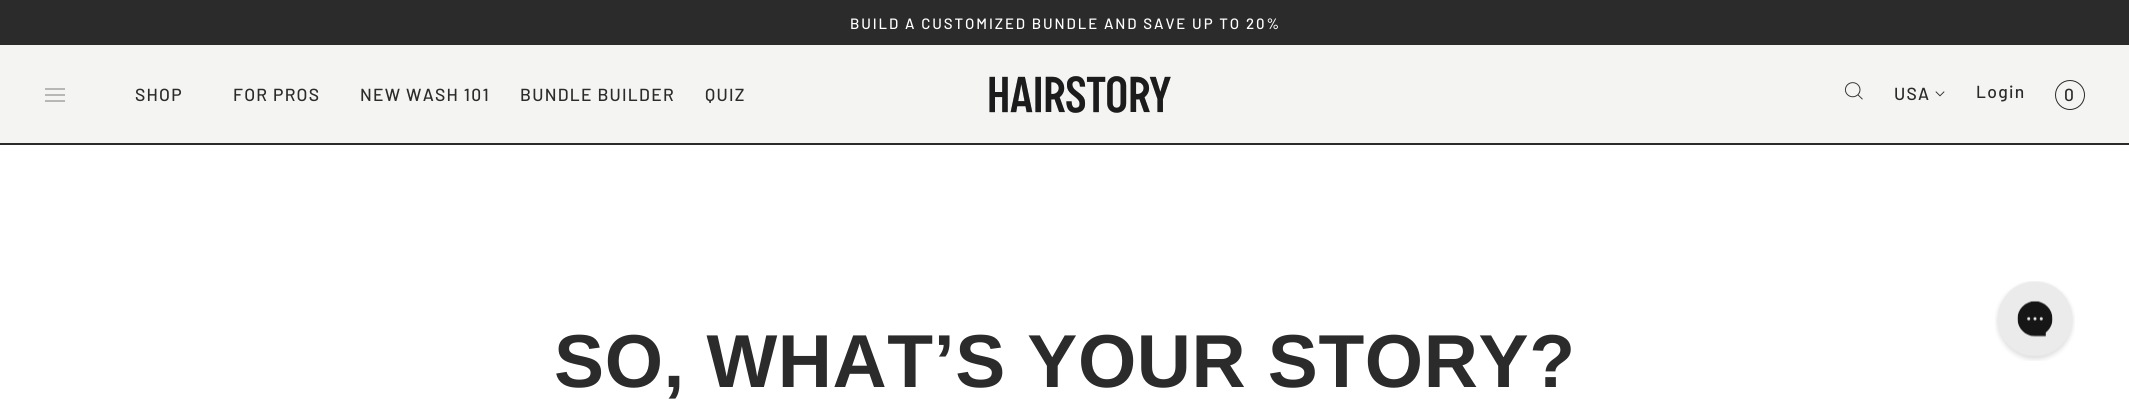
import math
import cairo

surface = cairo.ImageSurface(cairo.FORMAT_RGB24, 2129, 410)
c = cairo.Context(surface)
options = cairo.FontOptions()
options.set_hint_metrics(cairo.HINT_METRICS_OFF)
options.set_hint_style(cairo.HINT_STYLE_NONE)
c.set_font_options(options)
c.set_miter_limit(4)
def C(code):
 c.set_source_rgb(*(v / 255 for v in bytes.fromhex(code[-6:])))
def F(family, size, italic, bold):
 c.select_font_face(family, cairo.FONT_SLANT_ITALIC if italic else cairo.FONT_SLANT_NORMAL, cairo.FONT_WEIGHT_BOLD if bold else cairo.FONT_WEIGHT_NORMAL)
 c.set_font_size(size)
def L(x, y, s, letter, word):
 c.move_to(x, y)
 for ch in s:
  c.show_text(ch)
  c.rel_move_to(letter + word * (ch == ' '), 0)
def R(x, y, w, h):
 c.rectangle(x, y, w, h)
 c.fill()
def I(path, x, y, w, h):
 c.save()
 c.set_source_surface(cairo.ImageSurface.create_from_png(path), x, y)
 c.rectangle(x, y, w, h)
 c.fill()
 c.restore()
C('ffffff')
c.paint()
C('2b2b2b')
R(0,0,2129,45)
F('Barlow Medium',15,0,0)
C('ffffff')
L(850,29,'BUILD A CUSTOMIZED BUNDLE AND SAVE UP TO 20%',1.9,0)
C('2b2b2b')
R(0,143,2129,2)
C('f4f4f2')
R(0,45,2129,98)
c.new_path()
c.move_to(45,89)
c.line_to(65,89)
c.move_to(45,95)
c.line_to(65,95)
c.move_to(45,101)
c.line_to(65,101)
C('2b2b2b')
c.set_line_width(.6)
c.stroke()
F('Barlow Medium',17.5,0,0)
L(135,101,'SHOP',1.25,0)
L(233,101,'FOR PROS',1.25,0)
L(360,101,'NEW WASH 101',1.25,0)
L(520,101,'BUNDLE BUILDER',1.25,0)
L(705,101,'QUIZ',1.25,0)
I('1.png',989,76,182,37)
I('2.png',1844,82,19,18)
L(1894,100,'USA',1.25,0)
I('3.png',1935,91,10,6)
L(1976,98,'Login',1.25,0)
c.new_path()
c.arc(2070,95,14.5,0,2 * math.pi)
c.set_line_width(1)
c.stroke()
L(2064,101,'0',1.25,0)
F('Liberation Sans',75,0,1)
L(554,387,'SO, WHAT’S YOUR STORY?',.6,0)
I('4.png',1995,281,80,80)
surface.write_to_png('o.png')
